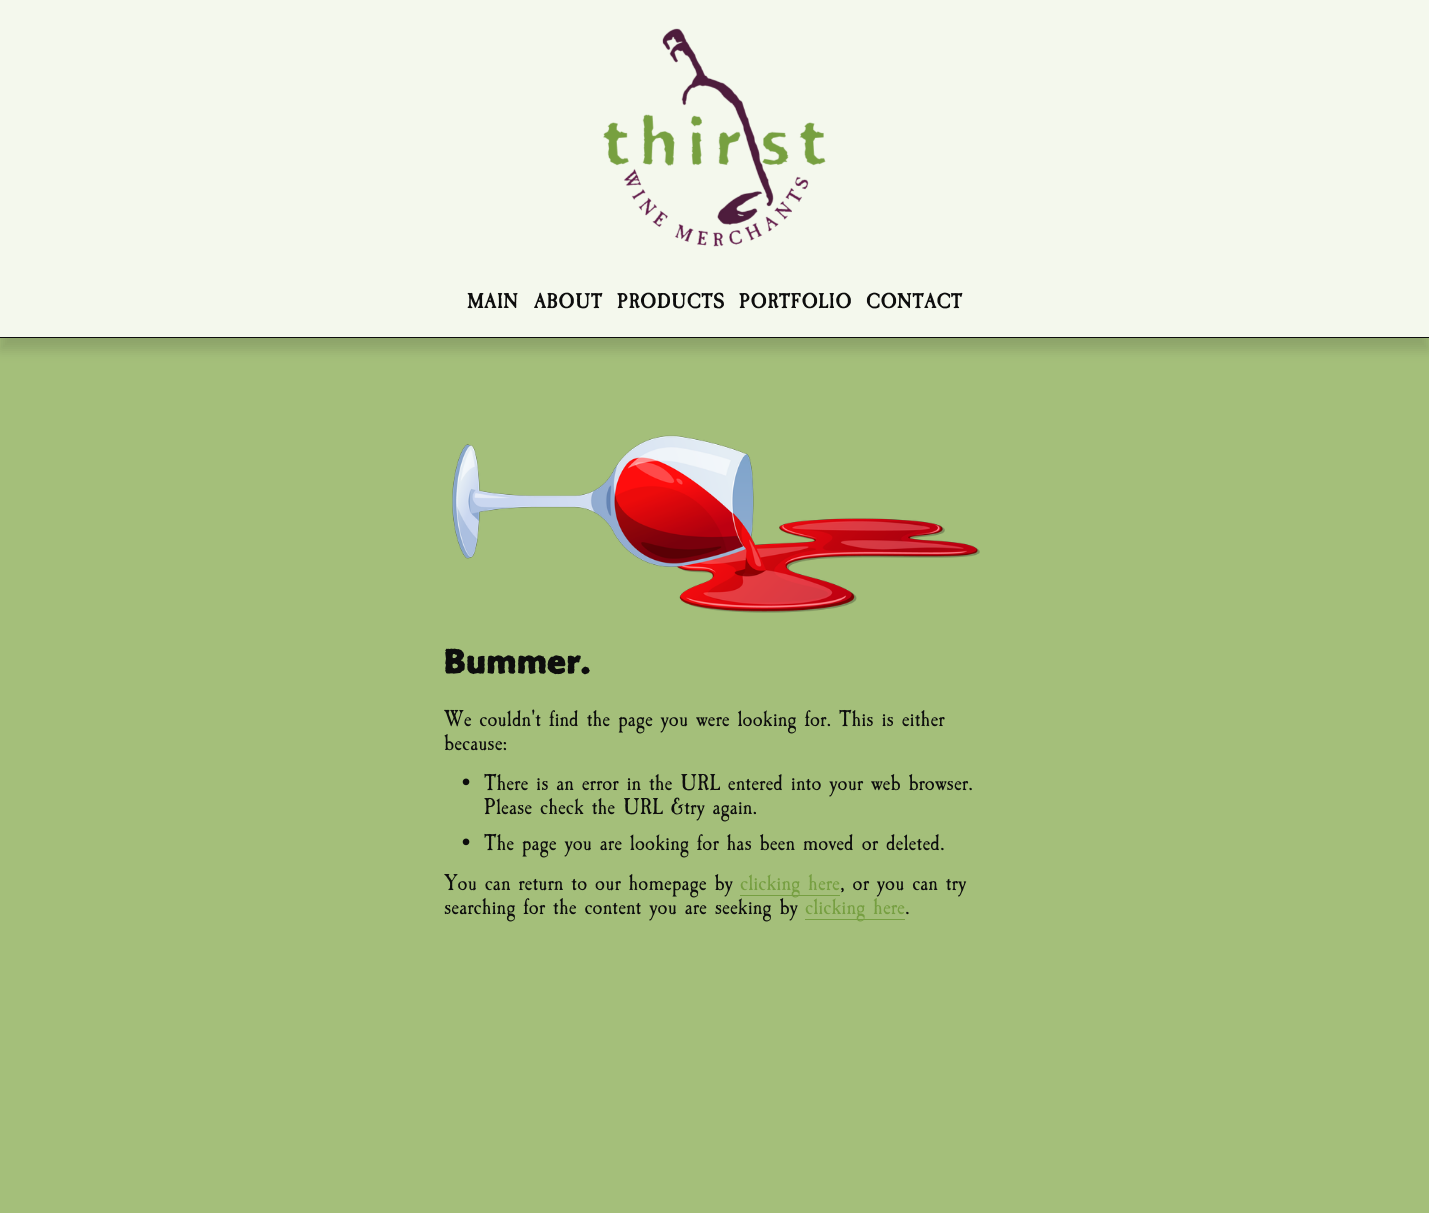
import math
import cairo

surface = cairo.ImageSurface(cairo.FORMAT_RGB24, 1429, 1213)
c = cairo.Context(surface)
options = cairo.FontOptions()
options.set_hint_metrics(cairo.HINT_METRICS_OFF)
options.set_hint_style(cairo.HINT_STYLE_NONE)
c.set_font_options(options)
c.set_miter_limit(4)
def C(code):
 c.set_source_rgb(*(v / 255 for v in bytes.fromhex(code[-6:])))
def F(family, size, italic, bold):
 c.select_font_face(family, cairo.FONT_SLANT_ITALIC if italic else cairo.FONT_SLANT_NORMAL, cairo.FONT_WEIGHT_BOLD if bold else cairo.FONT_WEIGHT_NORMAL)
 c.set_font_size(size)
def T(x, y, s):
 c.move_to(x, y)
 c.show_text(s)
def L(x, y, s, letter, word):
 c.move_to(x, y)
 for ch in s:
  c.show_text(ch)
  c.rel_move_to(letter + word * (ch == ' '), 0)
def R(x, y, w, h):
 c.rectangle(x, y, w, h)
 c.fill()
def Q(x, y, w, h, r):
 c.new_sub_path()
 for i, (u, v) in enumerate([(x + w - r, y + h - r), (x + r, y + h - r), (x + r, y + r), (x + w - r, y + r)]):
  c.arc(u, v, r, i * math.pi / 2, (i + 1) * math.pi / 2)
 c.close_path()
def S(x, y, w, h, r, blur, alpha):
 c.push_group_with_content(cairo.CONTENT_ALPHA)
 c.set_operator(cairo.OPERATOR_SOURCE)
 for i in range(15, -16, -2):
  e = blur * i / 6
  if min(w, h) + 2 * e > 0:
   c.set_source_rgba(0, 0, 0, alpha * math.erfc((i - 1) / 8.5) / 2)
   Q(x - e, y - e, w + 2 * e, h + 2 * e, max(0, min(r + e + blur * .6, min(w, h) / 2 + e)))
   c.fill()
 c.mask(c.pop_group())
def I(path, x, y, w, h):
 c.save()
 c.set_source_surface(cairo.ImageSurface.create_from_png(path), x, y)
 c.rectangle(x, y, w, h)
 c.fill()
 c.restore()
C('a4bf7a')
c.paint()
C('8da46a')
S(0,12,1429,338,0,6,1)
C('f4f8ed')
R(0,0,1429,337)
I('1.png',603,28,223,219)
F('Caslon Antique',21.5,0,1)
C('0d0d0d')
L(467,308,'MAIN',.75,0)
L(534,308,'ABOUT',.75,0)
L(617,308,'PRODUCTS',.75,0)
L(739,308,'PORTFOLIO',.75,0)
L(866,308,'CONTACT',.75,0)
R(0,337,1429,1)
I('2.png',452,435,528,178)
F('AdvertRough',32,0,0)
L(444,673,'Bummer.',.75,0)
F('Caslon Antique',24,0,0)
T(444,726,'We couldn\'t find the page you were looking for. This is either')
T(444,750,'because:')
T(458,790,'•')
T(484,790,'There is an error in the URL entered into your web browser.')
T(484,814,'Please check the URL &try again.')
T(458,850,'•')
T(484,850,'The page you are looking for has been moved or deleted.')
T(444,890,'You can return to our homepage by')
C('769f41')
R(740,895,100,1)
T(740,890,'clicking here')
C('0d0d0d')
T(840,890,', or you can try')
T(444,914,'searching for the content you are seeking by')
C('769f41')
R(805,919,100,1)
T(805,914,'clicking here')
C('0d0d0d')
T(905,914,'.')
surface.write_to_png('o.png')
